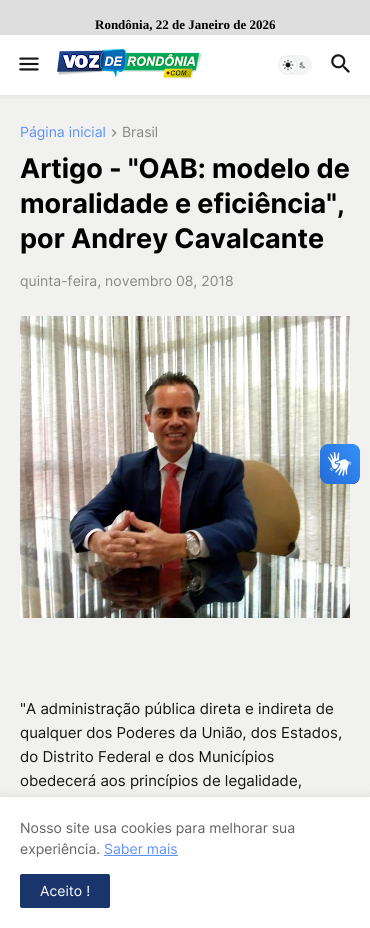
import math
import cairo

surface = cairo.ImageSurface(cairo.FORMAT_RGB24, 370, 928)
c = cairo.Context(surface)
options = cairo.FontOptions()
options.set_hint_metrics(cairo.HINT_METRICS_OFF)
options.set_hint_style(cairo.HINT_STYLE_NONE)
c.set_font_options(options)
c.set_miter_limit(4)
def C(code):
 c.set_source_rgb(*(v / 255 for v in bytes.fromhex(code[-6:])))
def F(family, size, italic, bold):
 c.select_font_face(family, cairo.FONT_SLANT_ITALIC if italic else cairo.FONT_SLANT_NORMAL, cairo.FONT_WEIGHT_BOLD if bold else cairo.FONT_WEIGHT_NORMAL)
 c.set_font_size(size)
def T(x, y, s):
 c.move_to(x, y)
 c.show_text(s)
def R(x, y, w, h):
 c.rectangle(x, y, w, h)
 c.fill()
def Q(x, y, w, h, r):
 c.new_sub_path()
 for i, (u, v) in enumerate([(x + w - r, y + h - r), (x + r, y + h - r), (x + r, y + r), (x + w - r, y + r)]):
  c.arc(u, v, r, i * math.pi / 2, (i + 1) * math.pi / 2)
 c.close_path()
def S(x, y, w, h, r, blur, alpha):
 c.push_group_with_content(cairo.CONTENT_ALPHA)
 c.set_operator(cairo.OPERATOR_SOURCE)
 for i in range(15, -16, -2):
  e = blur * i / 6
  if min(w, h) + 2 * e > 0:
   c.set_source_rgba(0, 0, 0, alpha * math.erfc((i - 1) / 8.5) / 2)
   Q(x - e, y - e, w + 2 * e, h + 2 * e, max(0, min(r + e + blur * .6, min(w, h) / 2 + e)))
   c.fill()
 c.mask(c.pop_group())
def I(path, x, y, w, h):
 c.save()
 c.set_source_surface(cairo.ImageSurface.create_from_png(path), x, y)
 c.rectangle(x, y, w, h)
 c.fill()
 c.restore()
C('dedede')
c.paint()
F('Liberation Serif',13,0,1)
C('000000')
T(95,29,'Rondônia, 22 de Janeiro de 2026')
C('f1f2ef')
R(0,95,370,702)
C('ffffff')
R(0,35,370,60)
c.save()
c.rectangle(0,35,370,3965)
c.clip()
c.rectangle(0,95,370,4)
c.clip()
C('000000')
S(0,35,370,60,0,5,.1)
c.restore()
I('1.png',19,57,20,14)
I('2.png',57,49,146,30)
C('f3f5f5')
Q(278,55,34,20,10)
c.fill()
I('4.png',299,61,7,8)
C('000000')
S(280,57,16,16,8,1,.1)
C('ffffff')
c.arc(288,65,8,0,2 * math.pi)
c.fill()
I('3.png',282,59,12,12)
I('5.png',331,54,19,19)
F('Inter',14,0,0)
C('5f91f5')
T(20,137,'Página inicial')
I('6.png',112,129,5,8)
C('888888')
T(122,137,'Brasil')
F('Inter',27,0,1)
C('000000')
T(20,178,'Artigo - "OAB: modelo de')
T(20,213,'moralidade e eficiência",')
T(20,248,'por Andrey Cavalcante')
F('Inter',14,0,0)
C('888888')
T(20,286,'quinta-feira, novembro 08, 2018')
I('7.png',20,316,330,302)
F('Inter',15,0,0)
C('141414')
T(20,714,'"A administração pública direta e indireta de')
T(20,738,'qualquer dos Poderes da União, dos Estados,')
T(20,762,'do Distrito Federal e dos Municípios')
T(20,786,'obedecerá aos princípios de legalidade,')
C('000000')
S(0,797,370,131,0,5,.1)
C('ffffff')
R(0,797,370,131)
F('Inter',14,0,0)
C('626262')
T(20,833,'Nosso site usa cookies para melhorar sua')
T(20,854,'experiência.')
C('5f91f5')
T(104,854,'Saber mais')
R(104,855,74,1)
C('19356c')
Q(20,874,90,34,2)
c.fill()
C('ffffff')
T(40,896,'Aceito !')
I('8.png',320,444,40,40)
I('9.png',320,444,40,40)
surface.write_to_png('o.png')
